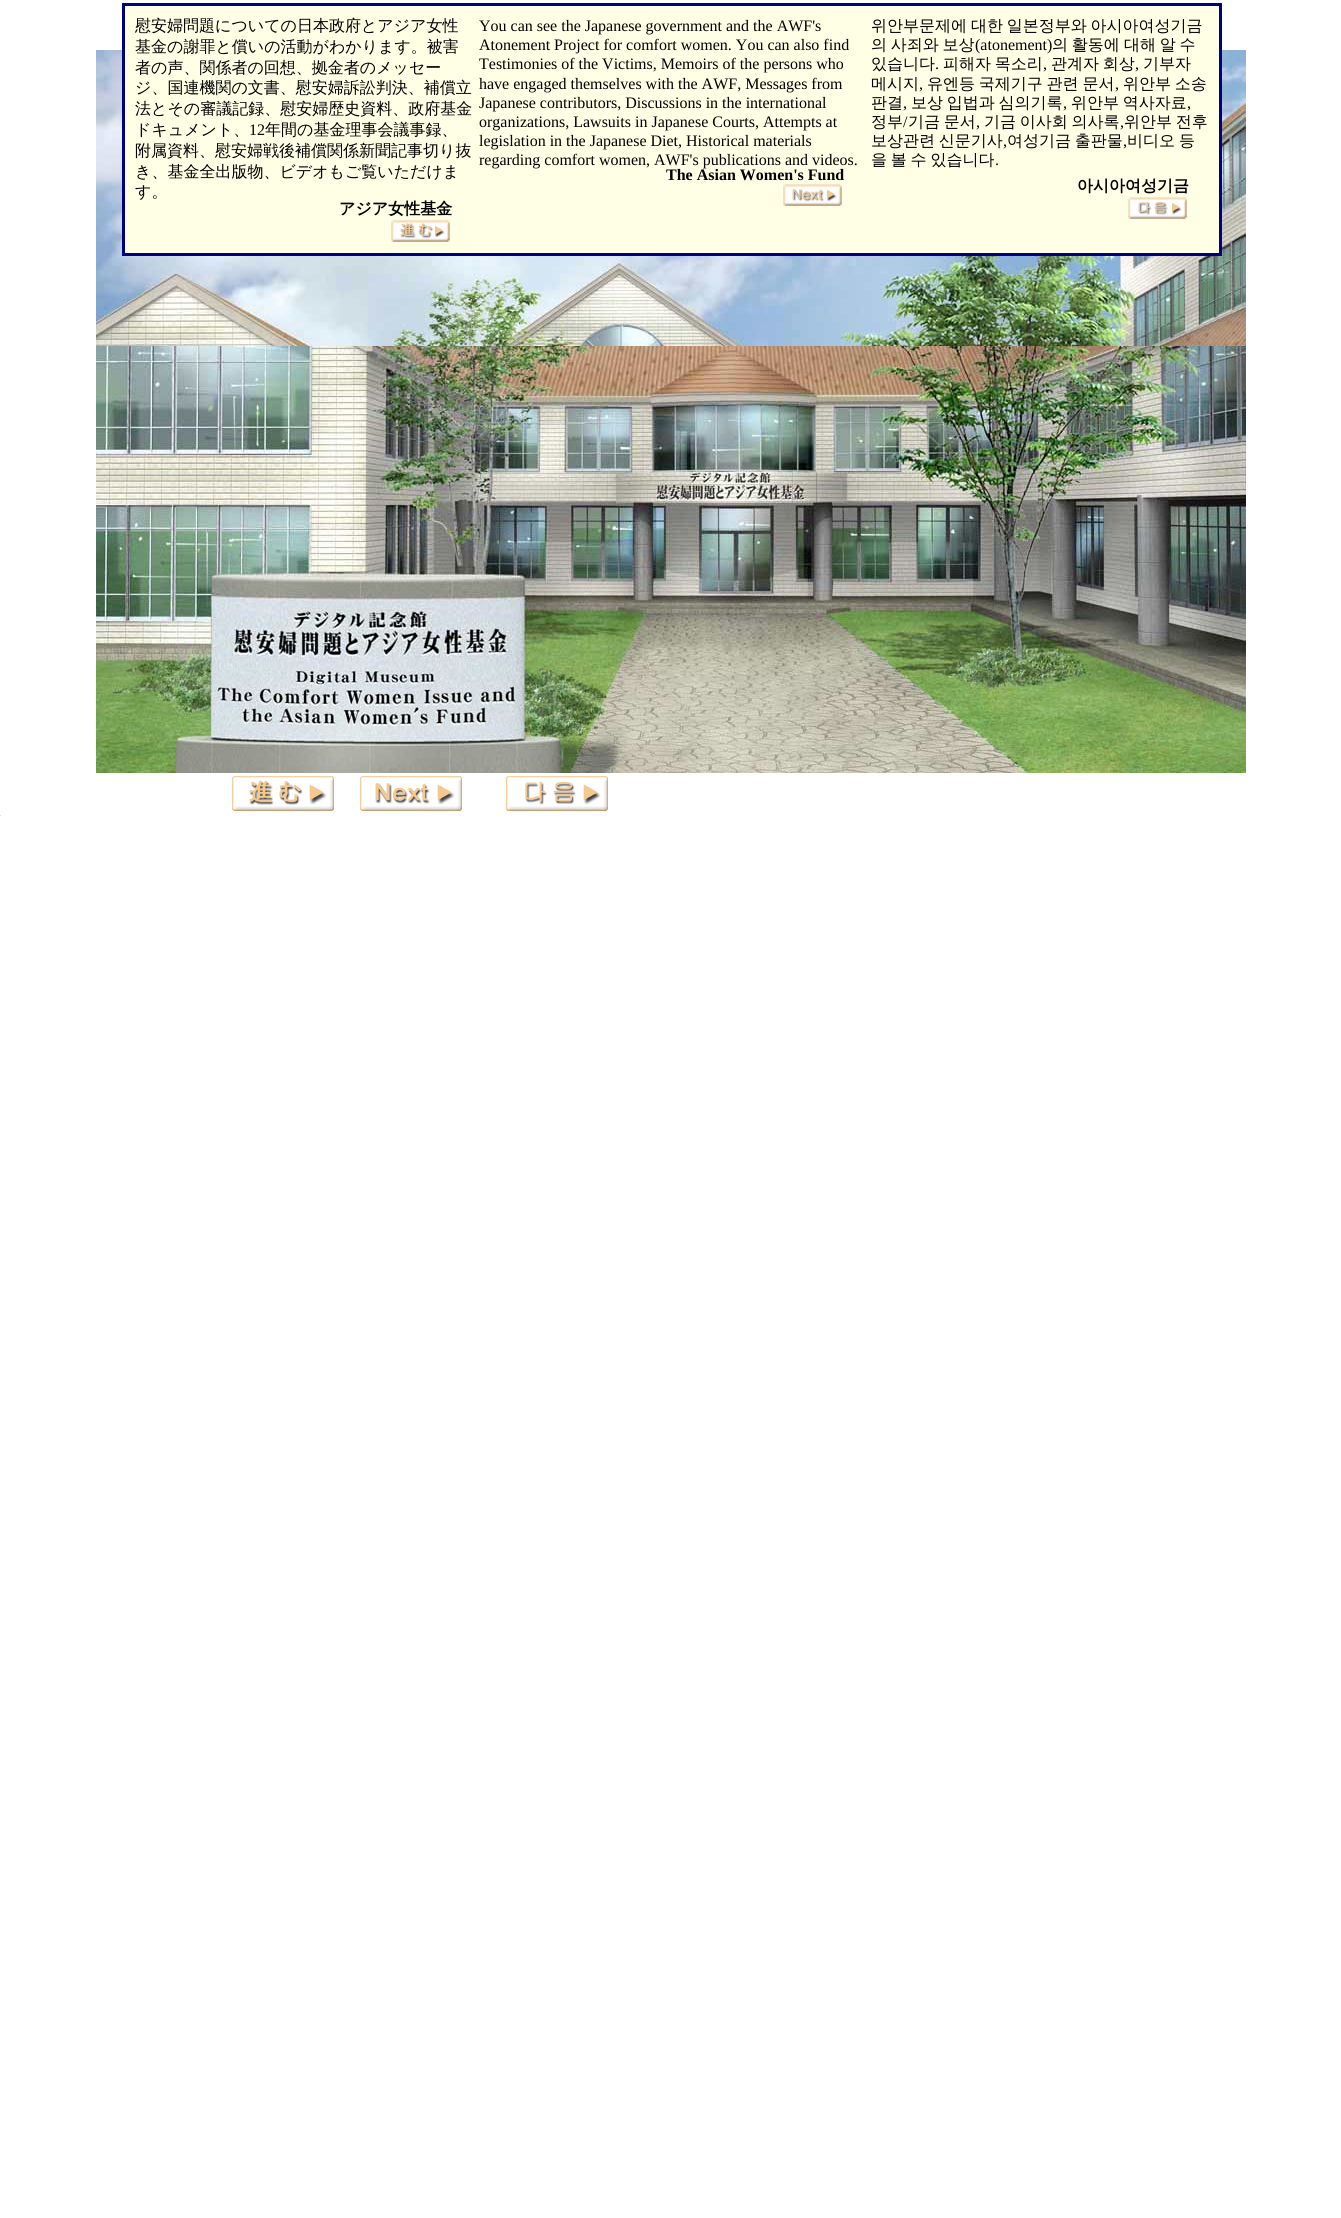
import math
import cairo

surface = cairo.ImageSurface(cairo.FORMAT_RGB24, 1341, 2218)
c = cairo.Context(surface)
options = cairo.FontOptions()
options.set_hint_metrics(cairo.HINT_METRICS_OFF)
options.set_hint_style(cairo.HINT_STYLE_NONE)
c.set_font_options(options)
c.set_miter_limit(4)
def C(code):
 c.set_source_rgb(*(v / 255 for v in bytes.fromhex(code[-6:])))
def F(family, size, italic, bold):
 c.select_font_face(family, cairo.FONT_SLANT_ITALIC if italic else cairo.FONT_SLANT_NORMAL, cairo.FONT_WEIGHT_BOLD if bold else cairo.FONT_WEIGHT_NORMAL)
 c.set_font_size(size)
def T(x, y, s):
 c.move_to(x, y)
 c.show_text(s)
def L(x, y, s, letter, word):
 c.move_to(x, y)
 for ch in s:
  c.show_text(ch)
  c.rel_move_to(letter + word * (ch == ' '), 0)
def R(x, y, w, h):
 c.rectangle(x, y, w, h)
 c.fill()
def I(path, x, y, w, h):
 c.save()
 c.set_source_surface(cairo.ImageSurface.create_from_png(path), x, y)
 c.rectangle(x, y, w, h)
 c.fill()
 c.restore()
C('ffffff')
c.paint()
I('1.png',96,50,1150,296)
c.rectangle(123,4,1098,251)
C('000080')
c.stroke()
C('ffffe6')
c.rectangle(124.5,5.5,1095,248)
c.fill_preserve()
C('000080')
c.set_line_width(1)
c.stroke()
F('WenQuanYi Zen Hei Medium',16,0,0)
C('000000')
T(135,31,'慰安婦問題についての日本政府とアジア女性')
T(135,52,'基金の謝罪と償いの活動がわかります。被害')
T(135,73,'者の声、関係者の回想、拠金者のメッセー')
T(135,93,'ジ、国連機関の文書、慰安婦訴訟判決、補償立')
T(135,114,'法とその審議記録、慰安婦歴史資料、政府基金')
T(135,135,'ドキュメント、')
F('Liberation Serif',16,0,0)
T(249,135,'12')
F('WenQuanYi Zen Hei Medium',16,0,0)
T(265,135,'年間の基金理事会議事録、')
T(135,156,'附属資料、慰安婦戦後補償関係新聞記事切り抜')
T(135,177,'き、基金全出版物、ビデオもご覧いただけま')
T(135,197,'す。')
F('WenQuanYi Zen Hei',16,0,1)
T(339,214,'アジア女性基金')
I('2.png',391,220,59,22)
F('Liberation Serif',16,0,0)
T(479,31,'You can see the Japanese government and the AWF\'s')
T(479,50,'Atonement Project for comfort women. You can also find')
T(479,69,'Testimonies of the Victims, Memoirs of the persons who')
T(479,89,'have engaged themselves with the AWF, Messages from')
T(479,108,'Japanese contributors, Discussions in the international')
T(479,127,'organizations, Lawsuits in Japanese Courts, Attempts at')
T(479,146,'legislation in the Japanese Diet, Historical materials')
T(479,165,'regarding comfort women, AWF\'s publications and videos.')
F('Liberation Serif',16,0,1)
T(666,180,'The Asian Women\'s Fund')
I('3.png',783,184,59,22)
F('WenQuanYi Zen Hei Medium',16,0,0)
T(871,31,'위안부문제에')
L(971,31,'대한 일본정부와 아시아여성기금',0,-1)
L(871,50,'의 사죄와 보상',0,-1)
F('Liberation Serif',16,0,0)
T(975,50,'(atonement)')
F('WenQuanYi Zen Hei Medium',16,0,0)
L(1052,50,'의 활동에',0,-1)
L(1124,50,'대해 알 수',0,-1)
T(871,69,'있습니다')
F('Liberation Serif',16,0,0)
T(935,69,'.')
F('WenQuanYi Zen Hei Medium',16,0,0)
L(943,69,'피해자 목소리',0,-1)
F('Liberation Serif',16,0,0)
T(1043,69,',')
F('WenQuanYi Zen Hei Medium',16,0,0)
L(1051,69,'관계자 회상',0,-1)
F('Liberation Serif',16,0,0)
T(1135,69,',')
F('WenQuanYi Zen Hei Medium',16,0,0)
T(1143,69,'기부자')
T(871,89,'메시지')
F('Liberation Serif',16,0,0)
T(919,89,',')
F('WenQuanYi Zen Hei Medium',16,0,0)
L(927,89,'유엔등 국제기구 관련 문서',0,-1)
F('Liberation Serif',16,0,0)
T(1115,89,',')
F('WenQuanYi Zen Hei Medium',16,0,0)
L(1123,89,'위안부 소송',0,-1)
T(871,108,'판결')
F('Liberation Serif',16,0,0)
T(903,108,',')
F('WenQuanYi Zen Hei Medium',16,0,0)
L(911,108,'보상 입법과 심의기록',0,-1)
F('Liberation Serif',16,0,0)
T(1063,108,',')
F('WenQuanYi Zen Hei Medium',16,0,0)
L(1071,108,'위안부 역사자료',0,-1)
F('Liberation Serif',16,0,0)
T(1187,108,',')
F('WenQuanYi Zen Hei Medium',16,0,0)
T(871,127,'정부')
F('Liberation Serif',16,0,0)
T(903,127,'/')
F('WenQuanYi Zen Hei Medium',16,0,0)
L(908,127,'기금 문서',0,-1)
F('Liberation Serif',16,0,0)
T(976,127,',')
F('WenQuanYi Zen Hei Medium',16,0,0)
L(984,127,'기금 이사회 의사록',0,-1)
F('Liberation Serif',16,0,0)
T(1120,127,',')
F('WenQuanYi Zen Hei Medium',16,0,0)
L(1124,127,'위안부 전후',0,-1)
L(871,146,'보상관련 신문기사',0,-1)
F('Liberation Serif',16,0,0)
T(1003,146,',')
F('WenQuanYi Zen Hei Medium',16,0,0)
L(1007,146,'여성기금 출판물',0,-1)
F('Liberation Serif',16,0,0)
T(1123,146,',')
F('WenQuanYi Zen Hei Medium',16,0,0)
T(1127,146,'비디오')
T(1179,146,'등')
L(871,165,'을 볼 수 있습니다',0,-1)
F('Liberation Serif',16,0,0)
T(995,165,'.')
F('WenQuanYi Zen Hei',16,0,1)
T(1077,191,'아시아여성기금')
I('4.png',1128,197,59,22)
I('5.png',96,346,1150,154)
I('6.png',96,500,1150,162)
I('7.png',96,662,1150,111)
I('8.png',232,776,102,35)
I('9.png',360,776,102,35)
I('10.png',506,776,102,35)
C('dfdfdf')
R(0,815,1,1)
surface.write_to_png('o.png')
